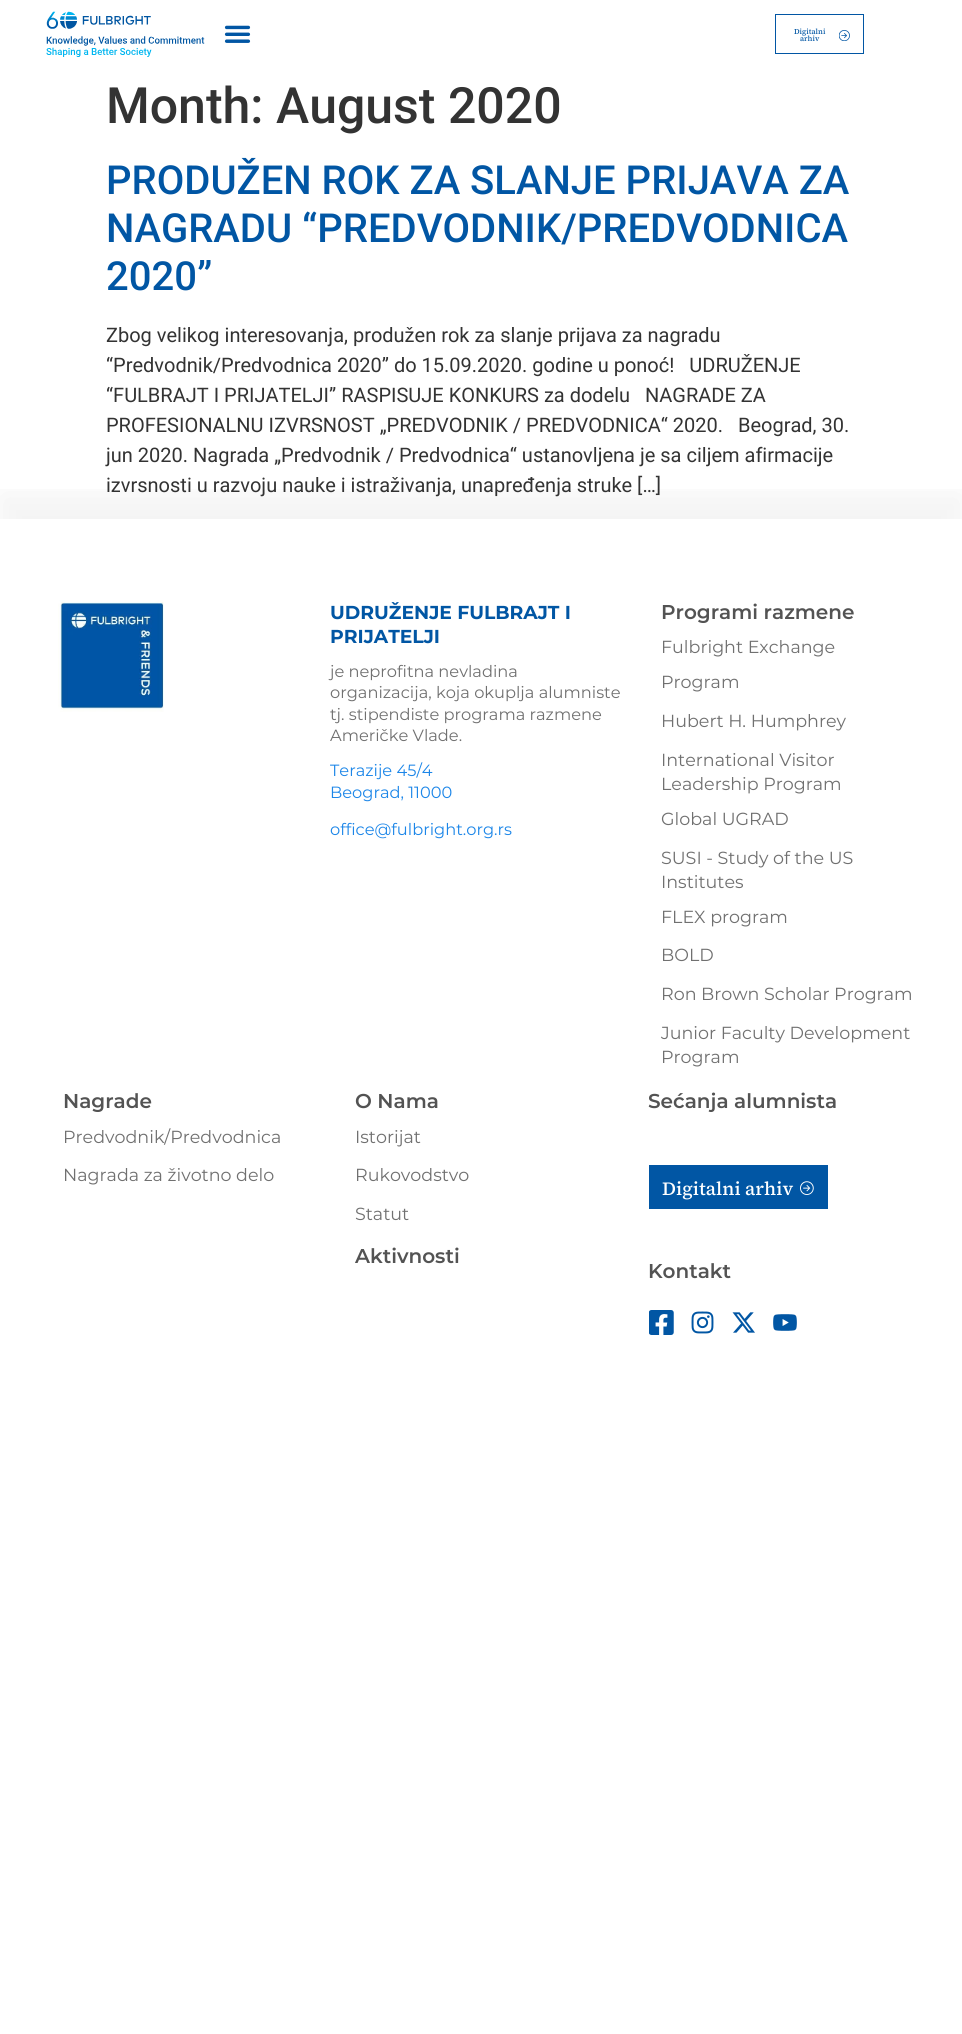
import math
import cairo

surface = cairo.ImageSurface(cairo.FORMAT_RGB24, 962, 2034)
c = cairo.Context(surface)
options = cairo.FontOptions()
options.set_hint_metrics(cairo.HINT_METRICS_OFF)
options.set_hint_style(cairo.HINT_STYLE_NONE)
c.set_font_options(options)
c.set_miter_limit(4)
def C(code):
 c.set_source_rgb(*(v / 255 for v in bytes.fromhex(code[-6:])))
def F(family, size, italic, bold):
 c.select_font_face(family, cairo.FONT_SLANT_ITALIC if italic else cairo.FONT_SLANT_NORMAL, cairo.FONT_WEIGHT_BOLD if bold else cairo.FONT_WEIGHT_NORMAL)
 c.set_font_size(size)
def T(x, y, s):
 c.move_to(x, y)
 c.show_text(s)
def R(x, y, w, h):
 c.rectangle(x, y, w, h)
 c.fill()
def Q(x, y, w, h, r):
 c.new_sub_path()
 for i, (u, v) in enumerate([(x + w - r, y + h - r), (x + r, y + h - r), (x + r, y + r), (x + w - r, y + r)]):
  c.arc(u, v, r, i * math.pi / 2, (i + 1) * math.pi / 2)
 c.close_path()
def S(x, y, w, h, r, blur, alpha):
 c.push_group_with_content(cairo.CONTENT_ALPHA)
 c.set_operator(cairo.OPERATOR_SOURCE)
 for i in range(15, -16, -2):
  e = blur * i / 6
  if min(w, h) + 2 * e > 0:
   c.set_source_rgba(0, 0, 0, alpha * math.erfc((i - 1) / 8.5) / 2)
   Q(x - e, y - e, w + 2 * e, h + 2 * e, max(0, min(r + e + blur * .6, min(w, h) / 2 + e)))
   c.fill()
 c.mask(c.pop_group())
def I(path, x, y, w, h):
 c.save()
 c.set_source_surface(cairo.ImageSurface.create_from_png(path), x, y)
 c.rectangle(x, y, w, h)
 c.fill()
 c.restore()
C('ffffff')
c.paint()
I('1.png',46,11,159,46)
I('2.png',224,25,27,18)
c.rectangle(775.5,14.5,88,39)
C('0156a4')
c.set_line_width(1)
c.stroke()
F('Source Serif 4 Medium',7.5,0,0)
T(794,34,'Digitalni')
T(800,41,'arhiv')
I('3.png',839,30,11,11)
F('Roboto Medium',50,0,0)
C('333333')
T(106,123,'Month: August 2020')
F('Roboto Medium',40,0,0)
C('0156a4')
T(106,194,'PRODUŽEN ROK ZA SLANJE PRIJAVA ZA')
T(106,242,'NAGRADU “PREDVODNIK/PREDVODNICA')
T(106,290,'2020”')
F('Roboto',20,0,0)
C('333333')
T(106,342,'Zbog velikog interesovanja, produžen rok za slanje prijava za nagradu')
T(106,372,'“Predvodnik/Predvodnica 2020” do 15.09.2020. godine u ponoć!   UDRUŽENJE')
T(106,402,'“FULBRAJT I PRIJATELJI” RASPISUJE KONKURS za dodelu   NAGRADE ZA')
T(106,432,'PROFESIONALNU IZVRSNOST „PREDVODNIK / PREDVODNICA“ 2020.   Beograd, 30.')
T(106,462,'jun 2020. Nagrada „Predvodnik / Predvodnica“ ustanovljena je sa ciljem afirmacije')
T(106,492,'izvrsnosti u razvoju nauke i istraživanja, unapređenja struke […]')
c.save()
c.rectangle(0,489,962,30)
c.clip()
C('000000')
S(0,494,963,879,0,19,.05)
c.restore()
I('4.png',58,600,106,112)
F('Montserrat',18.75,0,1)
C('0156a4')
T(330,619,'UDRUŽENJE FULBRAJT I')
T(330,643,'PRIJATELJI')
F('Montserrat',16.25,0,0)
C('707070')
T(330,677,'je neprofitna nevladina')
T(330,698,'organizacija, koja okuplja alumniste')
T(330,720,'tj. stipendiste programa razmene')
T(330,741,'Američke Vlade.')
C('1c86e8')
T(330,776,'Terazije 45/4')
T(330,798,'Beograd, 11000')
T(330,835,'office@fulbright.org.rs')
F('Montserrat SemiBold',20,0,0)
C('535353')
T(661,619,'Programi razmene')
F('Montserrat',17.5,0,0)
C('707070')
T(661,653,'Fulbright Exchange')
T(661,688,'Program')
T(661,727,'Hubert H. Humphrey')
T(661,766,'International Visitor')
T(661,790,'Leadership Program')
T(661,825,'Global UGRAD')
T(661,864,'SUSI - Study of the US')
T(661,888,'Institutes')
T(661,923,'FLEX program')
T(661,961,'BOLD')
T(661,1000,'Ron Brown Scholar Program')
T(661,1039,'Junior Faculty Development')
T(661,1063,'Program')
F('Montserrat SemiBold',20,0,0)
C('535353')
T(63,1108,'Nagrade')
F('Montserrat',17.5,0,0)
C('707070')
T(63,1143,'Predvodnik/Predvodnica')
T(63,1181,'Nagrada za životno delo')
F('Montserrat SemiBold',20,0,0)
C('535353')
T(355,1108,'O Nama')
F('Montserrat',17.5,0,0)
C('707070')
T(355,1143,'Istorijat')
T(355,1181,'Rukovodstvo')
T(355,1220,'Statut')
F('Montserrat SemiBold',20,0,0)
C('535353')
T(355,1263,'Aktivnosti')
T(648,1108,'Sećanja alumnista')
C('0156a4')
R(649,1165,179,44)
F('Source Serif 4 Medium',18.75,0,0)
C('ffffff')
T(662,1195,'Digitalni arhiv')
I('5.png',800,1181,14,14)
F('Montserrat SemiBold',20,0,0)
C('535353')
T(648,1278,'Kontakt')
I('6.png',649,1310,25,25)
I('7.png',691,1311,23,23)
I('8.png',732,1312,23,21)
I('9.png',773,1314,24,17)
surface.write_to_png('o.png')
